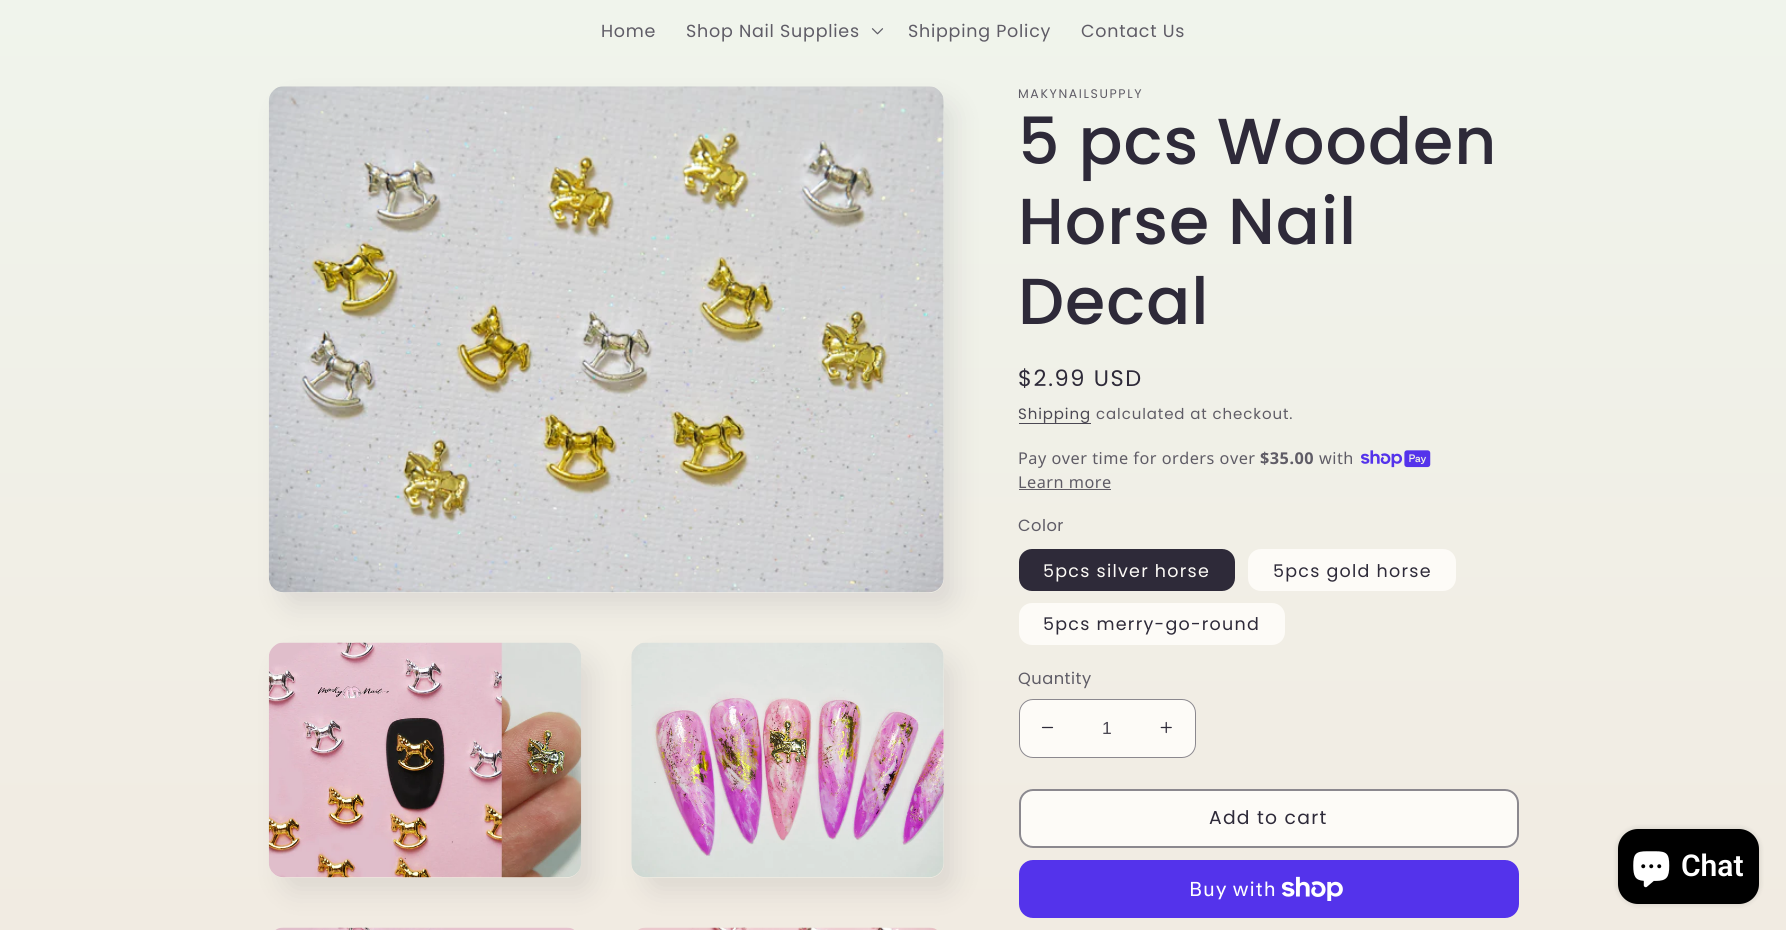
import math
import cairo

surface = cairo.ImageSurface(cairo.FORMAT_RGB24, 1786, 930)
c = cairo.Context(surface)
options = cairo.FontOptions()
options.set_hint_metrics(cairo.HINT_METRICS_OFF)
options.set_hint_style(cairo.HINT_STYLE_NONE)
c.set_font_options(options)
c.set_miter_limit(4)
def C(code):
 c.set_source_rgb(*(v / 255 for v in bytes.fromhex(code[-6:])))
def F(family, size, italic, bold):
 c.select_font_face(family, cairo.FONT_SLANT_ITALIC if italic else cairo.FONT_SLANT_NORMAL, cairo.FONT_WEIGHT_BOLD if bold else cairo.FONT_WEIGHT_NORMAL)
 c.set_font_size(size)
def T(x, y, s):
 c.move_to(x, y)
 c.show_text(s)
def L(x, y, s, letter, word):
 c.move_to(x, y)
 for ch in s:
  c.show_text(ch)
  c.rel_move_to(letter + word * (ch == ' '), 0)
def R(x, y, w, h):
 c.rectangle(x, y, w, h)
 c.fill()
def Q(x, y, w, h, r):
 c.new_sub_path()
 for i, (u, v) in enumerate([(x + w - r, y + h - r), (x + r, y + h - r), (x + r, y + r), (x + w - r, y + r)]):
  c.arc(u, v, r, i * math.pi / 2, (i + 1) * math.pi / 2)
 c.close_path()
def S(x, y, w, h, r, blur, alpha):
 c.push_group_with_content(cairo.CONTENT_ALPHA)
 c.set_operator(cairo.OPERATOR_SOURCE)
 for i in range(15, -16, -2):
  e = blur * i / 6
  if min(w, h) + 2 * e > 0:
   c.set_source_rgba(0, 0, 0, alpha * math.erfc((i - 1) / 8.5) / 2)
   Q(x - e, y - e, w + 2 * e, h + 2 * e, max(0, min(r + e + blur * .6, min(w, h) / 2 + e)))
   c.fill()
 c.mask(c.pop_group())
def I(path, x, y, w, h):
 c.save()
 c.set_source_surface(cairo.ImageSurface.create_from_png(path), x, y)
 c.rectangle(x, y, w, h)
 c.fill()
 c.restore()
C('ffffff')
c.paint()
gradient = cairo.LinearGradient(893,0,893,930)
gradient.add_color_stop_rgba(0,0.941,0.957,0.925,1)
gradient.add_color_stop_rgba(1,0.945,0.922,0.886,1)
c.set_source(gradient)
R(0,0,1786,930)
F('Poppins',17.5,0,0)
C('5f5c66')
L(601,37,'Home',.75,0)
L(686,37,'Shop Nail Supplies',.75,0)
I('1.png',871,28,13,7)
L(908,37,'Shipping Policy',.75,0)
L(1081,37,'Contact Us',.75,0)
C('2e2a39')
S(281,101,675,507,15,12.5,.1)
gradient = cairo.LinearGradient(893,0,893,930)
gradient.add_color_stop_rgba(0,0.941,0.957,0.925,1)
gradient.add_color_stop_rgba(1,0.945,0.922,0.886,1)
c.set_source(gradient)
Q(269,86,675,507,15)
c.fill()
I('2.png',268,86,676,507)
C('2e2a39')
S(281,658,313,235,15,12.5,.1)
gradient = cairo.LinearGradient(893,0,893,930)
gradient.add_color_stop_rgba(0,0.941,0.957,0.925,1)
gradient.add_color_stop_rgba(1,0.945,0.922,0.886,1)
c.set_source(gradient)
Q(269,643,312,235,15)
c.fill()
I('3.png',268,642,314,236)
C('2e2a39')
S(644,658,312,235,15,12.5,.1)
gradient = cairo.LinearGradient(893,0,893,930)
gradient.add_color_stop_rgba(0,0.941,0.957,0.925,1)
gradient.add_color_stop_rgba(1,0.945,0.922,0.886,1)
c.set_source(gradient)
Q(631,643,313,235,15)
c.fill()
I('4.png',631,642,313,236)
I('5.png',275,927,299,3)
I('6.png',638,927,299,3)
F('Poppins',12.5,0,0)
C('5f5c66')
L(1018,98,'MAKYNAILSUPPLY',1.6,0)
F('Poppins Medium',65,0,0)
C('2e2a39')
L(1018,164,'5 pcs Wooden',1,0)
L(1018,244,'Horse Nail',1,0)
L(1018,324,'Decal',1,0)
F('Poppins',22.5,0,0)
L(1018,386,'$2.99 USD',1.6,0)
C('4b4853')
R(1019,423,72,1)
F('Poppins',15,0,0)
L(1018,419,'Shipping',.9,0)
C('5f5c66')
L(1096,419,'calculated at checkout.',.9,0)
F('Noto Sans',16.25,0,0)
L(1018,464,'Pay over time for orders over',.5,0)
F('Noto Sans',16.25,0,1)
L(1260,464,'$35.00',.5,0)
F('Noto Sans',16.25,0,0)
L(1319,464,'with',.5,0)
I('7.png',1361,450,70,18)
L(1018,488,'Learn more',.5,0)
C('5f5b65')
R(1019,489,92,1)
F('Poppins',16.25,0,0)
C('5f5c66')
L(1018,531,'Color',.5,0)
C('2e2a39')
Q(1019,549,216,42,13)
c.fill()
F('Poppins',17.5,0,0)
C('fdfbf7')
L(1043,577,'5pcs silver horse',1.25,0)
Q(1248,549,208,42,13)
c.fill()
C('2e2a39')
L(1273,577,'5pcs gold horse',1.25,0)
C('fdfbf7')
Q(1019,603,266,42,13)
c.fill()
C('2e2a39')
L(1043,630,'5pcs merry-go-round',1.25,0)
F('Poppins',16.25,0,0)
C('5f5c66')
L(1018,684,'Quantity',.5,0)
C('fdfbf7')
Q(1019,699,177,59,14)
c.fill()
I('8.png',1041,726,13,3)
I('9.png',1160,721,12,13)
Q(1019.5,699.5,176,58,13.5)
c.set_source_rgba(0.18,0.165,0.224,0.55)
c.set_line_width(1)
c.stroke()
F('Liberation Sans',17.5,0,0)
C('4b4853')
T(1102,734,'1')
C('fdfbf7')
Q(1019,789,500,59,14)
c.fill()
Q(1019.5,789.5,499,58,13.5)
c.stroke()
Q(1020,790,498,57,13)
c.set_source_rgba(0.18,0.165,0.224,0.55)
c.set_line_width(2)
c.stroke()
F('Poppins',18.75,0,0)
C('2e2a39')
L(1209,824,'Add to cart',1.25,0)
C('5433eb')
Q(1019,860,500,58,14)
c.fill()
F('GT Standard',20,0,0)
C('ffffff')
L(1189,896,'Buy with',.75,0)
I('10.png',1281,876,62,25)
C('000000')
S(1618,829,141,75,20,3,.15)
C('000000')
Q(1618,829,141,75,20)
c.fill()
I('11.png',1633,851,37,37)
F('Roboto SemiBold',30,0,0)
C('ffffff')
T(1681,876,'Chat')
surface.write_to_png('o.png')
